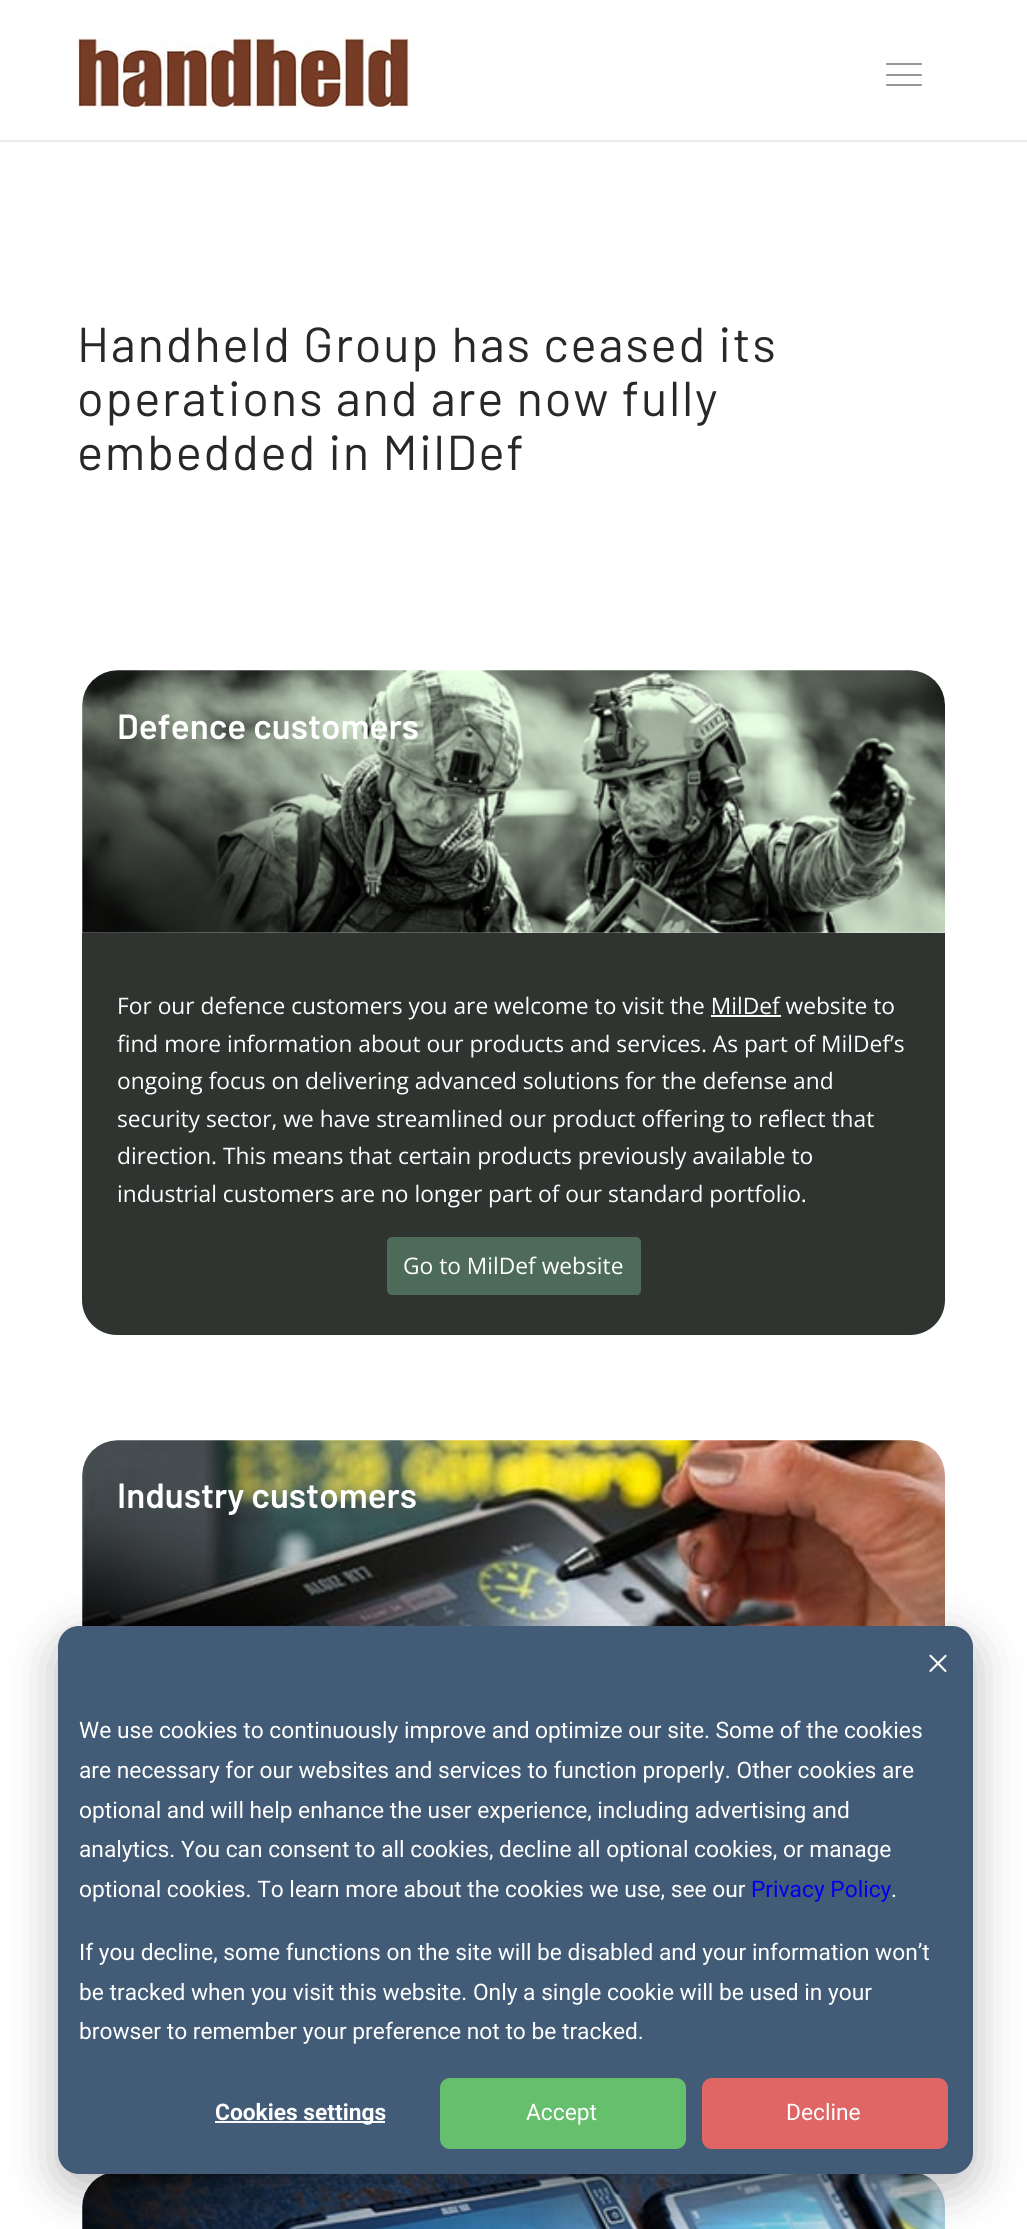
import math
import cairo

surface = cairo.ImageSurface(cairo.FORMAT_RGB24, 1027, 2229)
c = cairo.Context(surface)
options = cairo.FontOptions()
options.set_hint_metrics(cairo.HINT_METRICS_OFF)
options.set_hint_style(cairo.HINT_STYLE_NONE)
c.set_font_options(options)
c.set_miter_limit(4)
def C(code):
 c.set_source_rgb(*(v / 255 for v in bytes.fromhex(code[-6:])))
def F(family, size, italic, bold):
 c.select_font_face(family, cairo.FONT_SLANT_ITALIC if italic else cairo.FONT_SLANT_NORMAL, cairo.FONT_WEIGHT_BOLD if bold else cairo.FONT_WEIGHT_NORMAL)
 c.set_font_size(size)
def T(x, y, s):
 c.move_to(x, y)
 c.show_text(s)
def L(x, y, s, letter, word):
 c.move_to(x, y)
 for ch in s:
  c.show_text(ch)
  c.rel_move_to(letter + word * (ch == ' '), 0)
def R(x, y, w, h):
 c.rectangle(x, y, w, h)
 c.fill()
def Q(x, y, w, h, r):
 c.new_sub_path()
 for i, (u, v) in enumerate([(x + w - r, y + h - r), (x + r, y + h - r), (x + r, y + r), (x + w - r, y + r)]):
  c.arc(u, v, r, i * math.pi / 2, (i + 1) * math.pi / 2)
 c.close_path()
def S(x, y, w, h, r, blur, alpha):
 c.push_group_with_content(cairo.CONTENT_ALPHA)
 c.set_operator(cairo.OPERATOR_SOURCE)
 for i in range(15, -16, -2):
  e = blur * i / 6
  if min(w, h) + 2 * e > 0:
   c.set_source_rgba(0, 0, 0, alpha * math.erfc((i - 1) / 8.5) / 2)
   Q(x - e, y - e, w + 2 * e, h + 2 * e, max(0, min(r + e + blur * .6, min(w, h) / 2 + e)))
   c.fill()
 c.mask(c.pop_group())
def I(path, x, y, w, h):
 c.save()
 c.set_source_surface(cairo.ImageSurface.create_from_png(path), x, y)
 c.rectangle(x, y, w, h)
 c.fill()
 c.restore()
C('ffffff')
c.paint()
C('ebebeb')
R(0,140,1027,2)
I('1.png',77,38,333,69)
C('969696')
Q(886,74,36,2,1)
c.fill()
Q(886,63,36,2,1)
c.fill()
Q(886,84,36,2,1)
c.fill()
F('Barlow',49,0,0)
C('282828')
L(77,362,'Handheld Group has ceased its',1.75,0)
L(77,416,'operations and are now fully',1.75,0)
L(77,470,'embedded in MilDef',1.75,0)
I('2.png',82,670,863,263)
F('Barlow SemiBold',35,0,0)
C('ffffff')
T(117,739,'Defence customers')
C('303430')
c.new_path()
c.move_to(82,933)
c.line_to(945,933)
c.line_to(945,1300)
c.curve_to(945,1319.5,929.5,1335,910,1335)
c.line_to(117,1335)
c.curve_to(97.5,1335,82,1319.5,82,1300)
c.close_path()
c.fill()
F('Open Sans',22.75,0,0)
C('ffffff')
T(117,1014,'For our defence customers you are welcome to visit the MilDef website to')
R(711,1015,70,2)
T(117,1052,'find more information about our products and services. As part of MilDef’s')
T(117,1089,'ongoing focus on delivering advanced solutions for the defense and')
T(117,1127,'security sector, we have streamlined our product offering to reflect that')
T(117,1164,'direction. This means that certain products previously available to')
T(117,1202,'industrial customers are no longer part of our standard portfolio.')
C('4e6b59')
Q(387,1237,254,58,5)
c.fill()
R(390,1294,249,1)
C('ffffff')
T(403,1274,'Go to MilDef website')
I('3.png',82,1440,863,186)
F('Barlow SemiBold',35,0,0)
T(117,1508,'Industry customers')
I('4.png',82,2174,863,55)
C('000000')
S(58,1640,915,548,21,24.5,.28)
C('425b76')
Q(58,1626,915,548,21)
c.fill()
I('5.png',929,1654,18,18)
F('Roboto',22.75,0,0)
C('ffffff')
T(79,1738,'We use cookies to continuously improve and optimize our site. Some of the cookies')
T(79,1778,'are necessary for our websites and services to function properly. Other cookies are')
T(79,1818,'optional and will help enhance the user experience, including advertising and')
T(79,1857,'analytics. You can consent to all cookies, decline all optional cookies, or manage')
T(79,1897,'optional cookies. To learn more about the cookies we use, see our')
C('0000ee')
T(751,1897,'Privacy Policy')
C('ffffff')
T(891,1897,'.')
T(79,1960,'If you decline, some functions on the site will be disabled and your information won’t')
T(79,2000,'be tracked when you visit this website. Only a single cookie will be used in your')
T(79,2039,'browser to remember your preference not to be tracked.')
C('fafafa')
R(215,2121,170,2)
F('Roboto',22.75,0,1)
C('ffffff')
T(215,2120,'Cookies settings')
C('66bf6d')
Q(439,2077,248,73,11)
c.fill_preserve()
C('425b76')
c.stroke()
F('Roboto',22.75,0,0)
C('ffffff')
T(526,2120,'Accept')
C('e06666')
Q(701,2077,248,73,11)
c.fill_preserve()
C('425b76')
c.stroke()
C('ffffff')
T(786,2120,'Decline')
surface.write_to_png('o.png')
